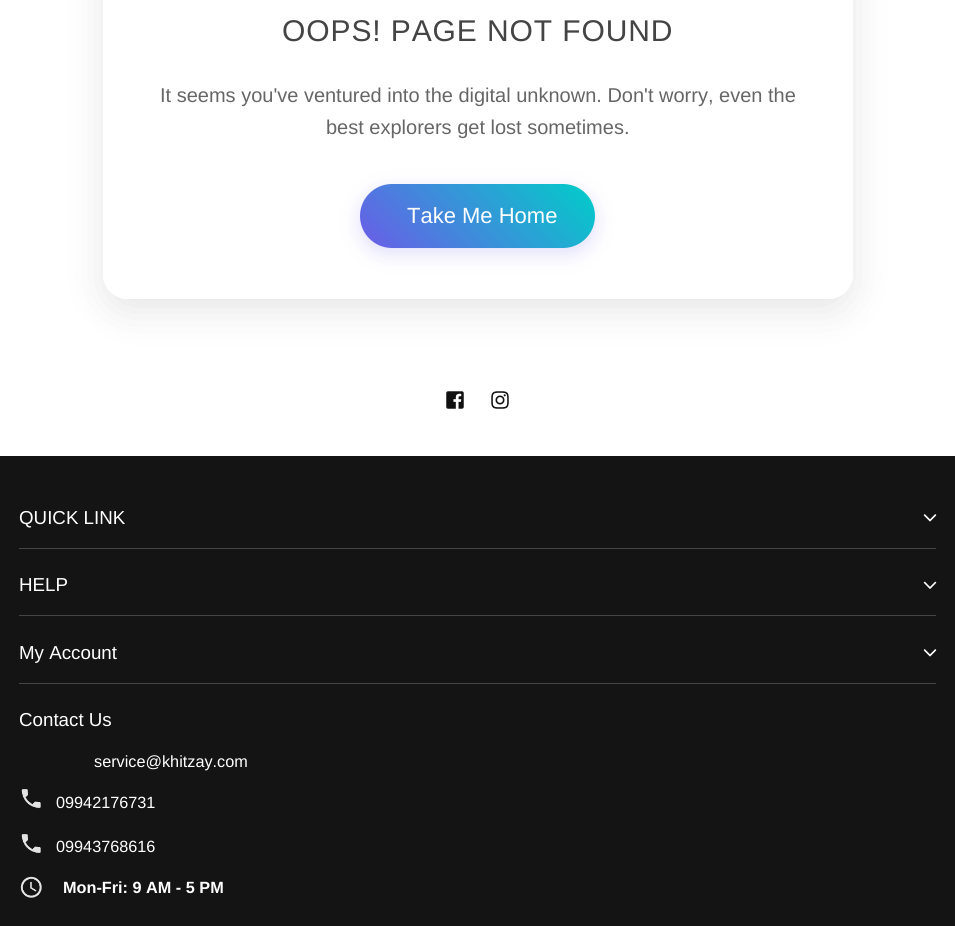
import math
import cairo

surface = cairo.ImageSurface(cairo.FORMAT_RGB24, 955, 926)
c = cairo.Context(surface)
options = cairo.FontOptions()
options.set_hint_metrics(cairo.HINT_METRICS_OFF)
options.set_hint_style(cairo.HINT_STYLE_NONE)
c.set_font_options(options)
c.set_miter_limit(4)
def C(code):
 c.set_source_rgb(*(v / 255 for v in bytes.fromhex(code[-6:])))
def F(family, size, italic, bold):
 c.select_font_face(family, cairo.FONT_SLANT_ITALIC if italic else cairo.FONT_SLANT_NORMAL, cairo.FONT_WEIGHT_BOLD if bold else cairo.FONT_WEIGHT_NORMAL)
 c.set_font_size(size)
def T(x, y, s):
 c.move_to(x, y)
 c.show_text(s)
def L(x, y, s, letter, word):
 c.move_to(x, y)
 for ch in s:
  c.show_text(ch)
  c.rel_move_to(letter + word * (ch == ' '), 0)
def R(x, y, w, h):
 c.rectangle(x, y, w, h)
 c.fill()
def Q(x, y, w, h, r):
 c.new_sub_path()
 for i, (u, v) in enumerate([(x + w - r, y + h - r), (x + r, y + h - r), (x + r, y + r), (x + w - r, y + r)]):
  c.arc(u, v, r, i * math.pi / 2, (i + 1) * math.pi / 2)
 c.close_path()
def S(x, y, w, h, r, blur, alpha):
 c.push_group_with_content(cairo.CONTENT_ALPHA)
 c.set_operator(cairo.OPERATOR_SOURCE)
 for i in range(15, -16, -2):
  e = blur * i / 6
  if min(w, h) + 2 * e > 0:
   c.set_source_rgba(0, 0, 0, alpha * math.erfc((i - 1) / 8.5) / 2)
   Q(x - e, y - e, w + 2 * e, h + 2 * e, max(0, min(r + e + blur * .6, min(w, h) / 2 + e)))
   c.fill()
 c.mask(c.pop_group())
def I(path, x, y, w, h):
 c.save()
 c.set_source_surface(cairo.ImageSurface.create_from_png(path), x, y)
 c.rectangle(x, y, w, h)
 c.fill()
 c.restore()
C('ffffff')
c.paint()
c.save()
c.set_fill_rule(cairo.FILL_RULE_EVEN_ODD)
c.new_path()
c.move_to(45,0)
c.line_to(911,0)
c.line_to(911,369)
c.line_to(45,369)
c.close_path()
c.move_to(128,-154)
c.line_to(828,-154)
c.curve_to(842,-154,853,-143,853,-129)
c.line_to(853,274)
c.curve_to(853,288,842,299,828,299)
c.line_to(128,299)
c.curve_to(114,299,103,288,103,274)
c.line_to(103,-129)
c.curve_to(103,-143,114,-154,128,-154)
c.close_path()
c.clip()
C('000000')
S(103,-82,750,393,25,19,.1)
c.restore()
c.set_source_rgba(1,1,1,0.9)
Q(103,-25,750,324,25)
c.fill()
F('Liberation Sans',30,0,0)
C('444444')
L(282,41,'OOPS! PAGE NOT FOUND',.9,0)
F('Liberation Sans',20,0,0)
C('666666')
T(160,102,'It seems you\'ve ventured into the digital unknown. Don\'t worry, even the')
T(326,134,'best explorers get lost sometimes.')
C('6b5ce7')
S(360,190,235,64,32,9.5,.2)
gradient = cairo.LinearGradient(403,290,552,141)
gradient.add_color_stop_rgba(0,0.42,0.361,0.906,1)
gradient.add_color_stop_rgba(1,0,0.808,0.788,1)
c.set_source(gradient)
Q(360,184,235,64,32)
c.fill()
F('Liberation Sans',22,0,0)
C('ffffff')
T(407,223,'Take Me Home')
I('1.png',446,391,18,18)
I('2.png',491,391,18,18)
C('141414')
R(0,456,955,470)
F('Liberation Sans',18.75,0,0)
C('ffffff')
T(19,524,'QUICK LINK')
I('3.png',923,514,14,8)
C('454545')
R(19,548,917,1)
C('ffffff')
T(19,591,'HELP')
I('4.png',923,581,14,8)
C('454545')
R(19,615,917,1)
C('ffffff')
T(19,659,'My Account')
I('3.png',923,649,14,8)
C('454545')
R(19,683,917,1)
C('ffffff')
T(19,726,'Contact Us')
F('Liberation Sans',16.25,0,0)
T(94,767,'service@khitzay.com')
I('5.png',21,789,20,20)
T(56,808,'09942176731')
I('6.png',21,834,20,19)
T(56,852,'09943768616')
I('7.png',20,876,22,22)
F('Liberation Sans',16.25,0,1)
T(63,893,'Mon-Fri: 9 AM - 5 PM')
surface.write_to_png('o.png')
